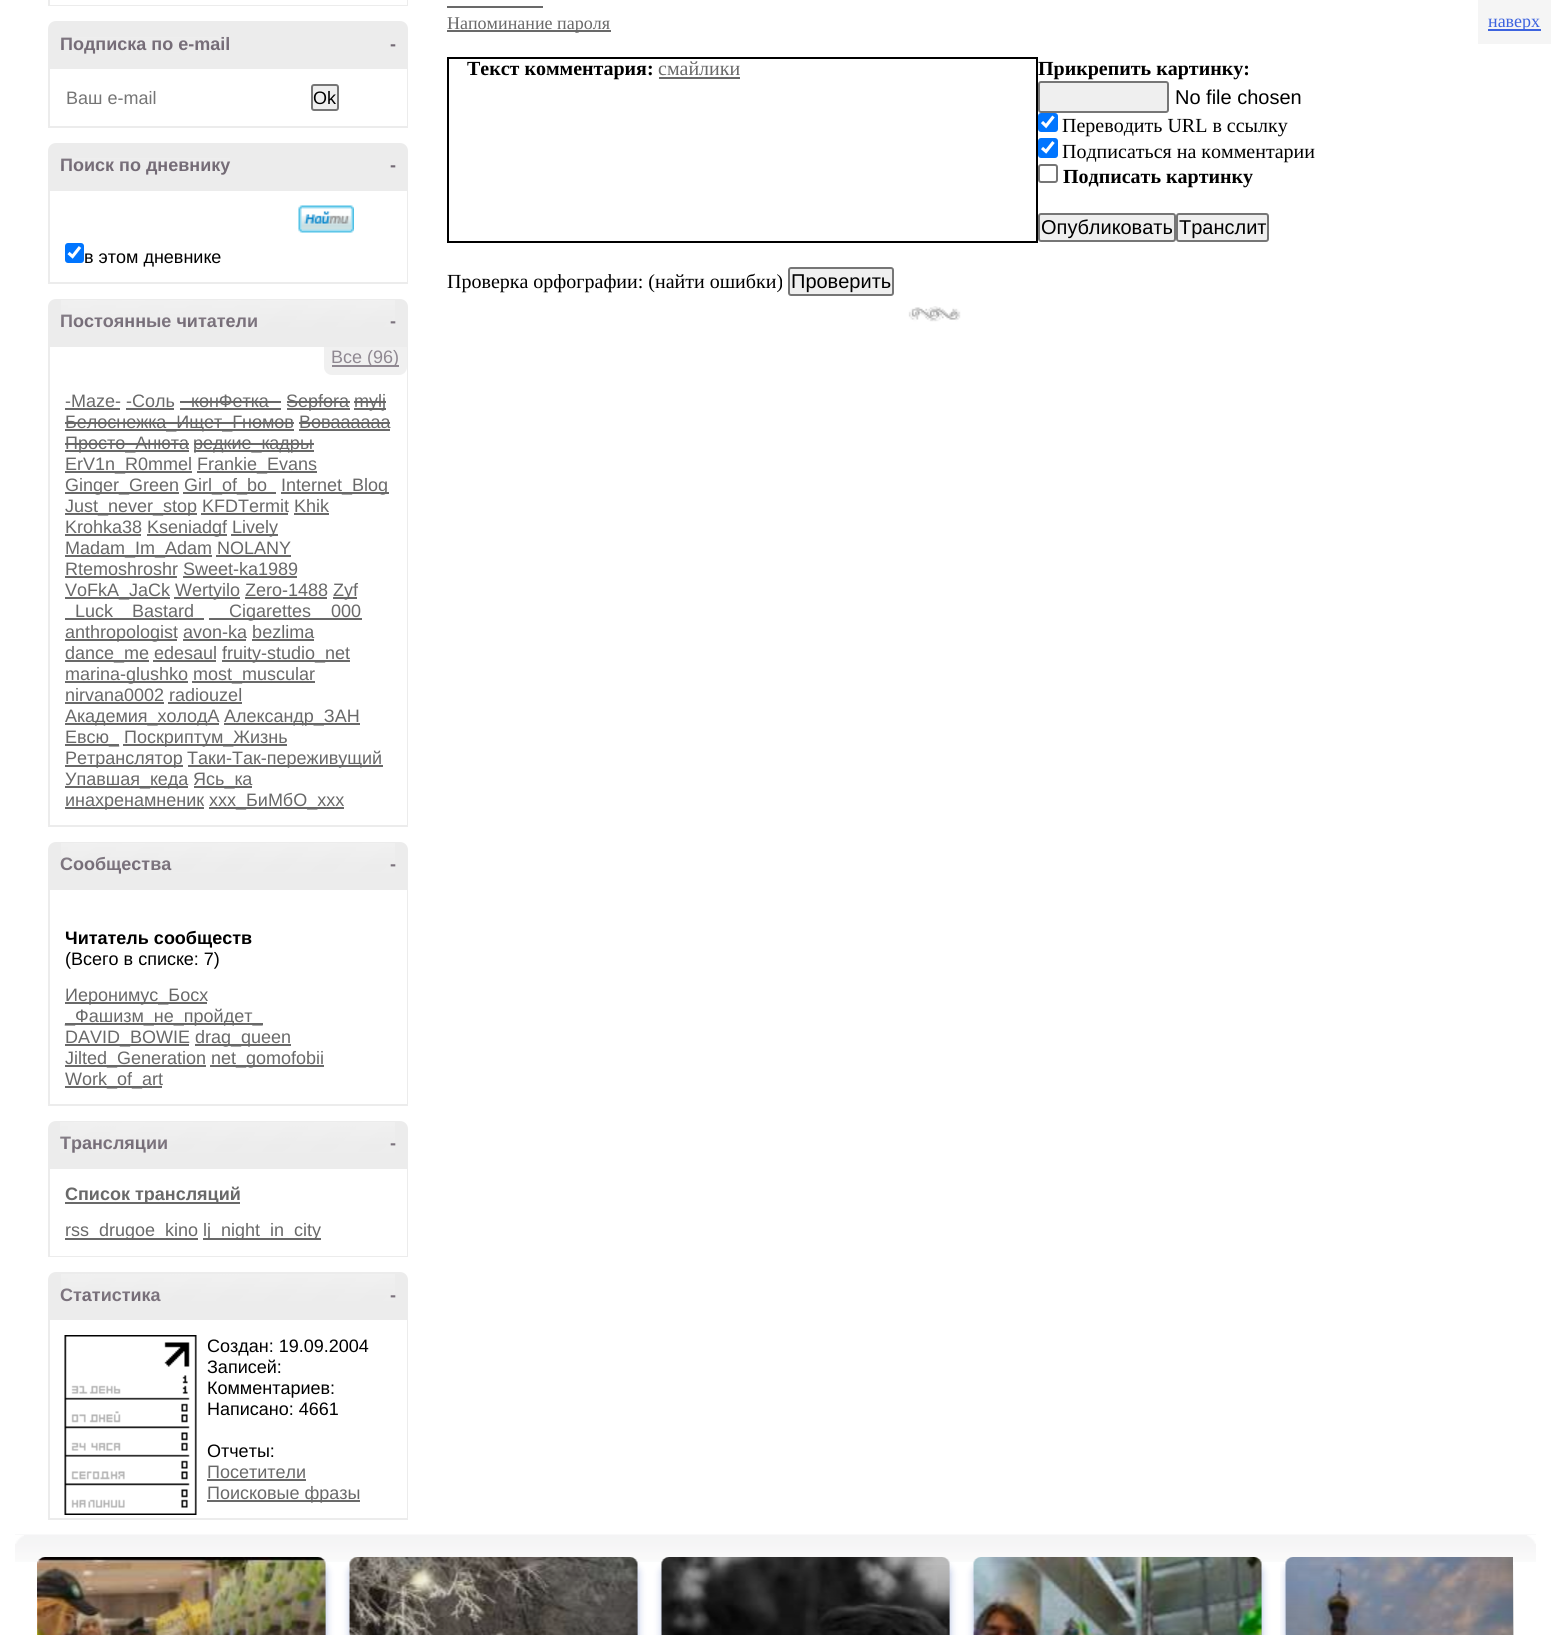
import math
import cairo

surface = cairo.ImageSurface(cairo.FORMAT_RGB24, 1551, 1635)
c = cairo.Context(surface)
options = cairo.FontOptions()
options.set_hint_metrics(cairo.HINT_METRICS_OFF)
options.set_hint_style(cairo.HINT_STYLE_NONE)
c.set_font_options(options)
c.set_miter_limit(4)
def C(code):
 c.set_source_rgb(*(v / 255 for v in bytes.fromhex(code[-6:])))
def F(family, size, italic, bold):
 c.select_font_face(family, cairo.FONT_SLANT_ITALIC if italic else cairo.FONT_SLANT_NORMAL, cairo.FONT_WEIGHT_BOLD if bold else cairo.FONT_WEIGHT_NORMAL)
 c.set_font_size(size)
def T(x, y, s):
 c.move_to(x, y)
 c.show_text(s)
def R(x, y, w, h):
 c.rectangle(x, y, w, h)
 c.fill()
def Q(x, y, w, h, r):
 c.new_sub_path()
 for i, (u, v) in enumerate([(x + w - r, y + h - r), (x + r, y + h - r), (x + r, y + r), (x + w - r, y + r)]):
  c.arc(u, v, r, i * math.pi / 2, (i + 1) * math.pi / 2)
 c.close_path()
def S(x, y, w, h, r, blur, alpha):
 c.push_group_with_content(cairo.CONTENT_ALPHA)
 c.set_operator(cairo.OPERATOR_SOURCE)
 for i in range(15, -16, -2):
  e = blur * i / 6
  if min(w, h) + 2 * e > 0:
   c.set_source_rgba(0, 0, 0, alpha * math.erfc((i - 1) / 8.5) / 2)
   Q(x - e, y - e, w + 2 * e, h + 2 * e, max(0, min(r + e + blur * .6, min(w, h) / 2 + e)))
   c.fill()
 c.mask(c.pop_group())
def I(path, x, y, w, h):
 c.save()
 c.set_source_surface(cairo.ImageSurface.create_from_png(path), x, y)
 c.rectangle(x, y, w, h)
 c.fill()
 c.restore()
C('ffffff')
c.paint()
C('ececec')
R(407,0,1,6)
R(48,5,360,1)
R(48,0,2,6)
c.new_path()
c.move_to(56,22)
c.line_to(400,22)
c.curve_to(404,22,407,25,407,29)
c.line_to(407,68)
c.line_to(49,68)
c.line_to(49,29)
c.curve_to(49,25,52,22,56,22)
c.close_path()
c.fill_preserve()
c.stroke()
F('Liberation Sans',18,0,1)
C('736a75')
T(60,50,'Подписка по e-mail')
T(390,50,'-')
I('1.png',61,37,168,16)
C('ececec')
R(407,69,1,59)
R(48,126,360,2)
R(48,69,2,59)
F('Liberation Sans',18,0,0)
C('757575')
T(66,104,'Ваш e-mail')
C('efefef')
Q(312,85,26,25,2)
c.fill_preserve()
C('767676')
c.stroke()
C('000000')
T(313,104,'Ok')
C('ececec')
c.new_path()
c.move_to(56,144)
c.line_to(400,144)
c.curve_to(404,144,407,147,407,151)
c.line_to(407,190)
c.line_to(49,190)
c.line_to(49,151)
c.curve_to(49,147,52,144,56,144)
c.close_path()
c.fill_preserve()
c.stroke()
F('Liberation Sans',18,0,1)
C('736a75')
T(60,171,'Поиск по дневнику')
T(390,171,'-')
I('2.png',61,158,169,7)
C('ececec')
R(407,191,1,93)
R(48,282,360,2)
R(48,191,2,93)
I('3.png',298,205,56,28)
C('0075ff')
Q(65,243,19,20,3)
c.fill()
c.new_path()
c.move_to(68.5,253)
c.line_to(72.5,256.5)
c.line_to(80,247)
C('ffffff')
c.set_line_width(3.1)
c.stroke()
F('Liberation Sans',18,0,0)
C('000000')
T(84,263,'в этом дневнике')
C('ececec')
c.new_path()
c.move_to(56,300)
c.line_to(400,300)
c.curve_to(404,300,407,303,407,307)
c.line_to(407,346)
c.line_to(49,346)
c.line_to(49,307)
c.curve_to(49,303,52,300,56,300)
c.close_path()
c.fill_preserve()
c.set_line_width(2)
c.stroke()
F('Liberation Sans',18,0,1)
C('736a75')
T(60,327,'Постоянные читатели')
T(390,327,'-')
I('4.png',61,300,334,27)
C('ececec')
R(407,347,1,480)
R(48,825,360,2)
R(48,347,2,480)
C('f0f0f0')
c.new_path()
c.move_to(324,347)
c.line_to(407,347)
c.line_to(407,367)
c.curve_to(407,371.5,403.5,375,399,375)
c.line_to(332,375)
c.curve_to(327.5,375,324,371.5,324,367)
c.close_path()
c.fill()
C('8f8891')
R(332,365,67,2)
F('Liberation Sans',18,0,0)
T(331,363,'Все (96)')
C('696969')
T(65,407,'-Maze- -Соль')
R(65,408,55,2)
T(191,407,'конФетка')
R(180,408,101,2)
R(180,401,101,2)
R(287,408,63,2)
T(286,407,'Sepfora')
R(287,401,63,2)
R(354,408,32,2)
T(354,407,'mylj')
R(354,401,32,2)
R(126,408,48,2)
R(65,429,229,2)
T(65,428,'Белоснежка_Ищет_Гномов Воваааааа')
R(65,422,229,2)
R(299,422,91,2)
R(299,429,91,2)
R(65,450,124,2)
T(65,449,'Просто_Анюта')
R(65,443,124,2)
R(194,450,120,2)
T(193,449,'редкие_кадры')
R(194,443,120,2)
R(65,471,127,2)
T(65,470,'ErV1n_R0mmel')
R(197,471,120,2)
T(197,470,'Frankie_Evans')
R(65,492,114,2)
T(65,491,'Ginger_Green')
R(183,492,93,2)
T(184,491,'Girl_of_bo')
R(281,492,108,2)
T(281,491,'Internet_Blog')
R(65,513,132,2)
T(65,512,'Just_never_stop KFDTermit Khik')
R(201,513,87,2)
R(294,513,35,2)
T(65,533,'Krohka38')
R(65,534,76,2)
R(147,534,80,2)
T(147,533,'Kseniadgf')
R(231,534,47,2)
T(232,533,'Lively')
R(65,555,147,2)
T(65,554,'Madam_Im_Adam NOLANY')
R(216,555,75,2)
T(65,575,'Rtemoshroshr Sweet-ka1989')
R(65,576,112,2)
R(183,576,114,2)
R(65,597,105,2)
T(65,596,'VoFkA_JaCk')
R(174,597,66,2)
T(175,596,'Wertyilo Zero-1488')
R(333,597,24,2)
T(333,596,'Zyf')
R(245,597,82,2)
T(75,617,'Luck')
R(65,618,139,2)
T(132,617,'Bastard')
R(209,618,153,2)
T(229,617,'Cigarettes')
T(331,617,'000')
R(65,639,112,2)
T(65,638,'anthropologist avon-ka bezlima')
R(183,639,63,2)
R(252,639,62,2)
R(65,660,84,2)
T(65,659,'dance_me edesaul')
R(222,660,128,2)
T(222,659,'fruity-studio_net')
R(153,660,63,2)
R(65,681,123,2)
T(65,680,'marina-glushko')
R(192,681,123,2)
T(193,680,'most_muscular')
T(65,701,'nirvana0002 radiouzel')
R(65,702,99,2)
R(168,702,74,2)
R(65,723,154,2)
T(65,722,'Академия_холодА')
R(224,723,136,2)
T(224,722,'Александр_ЗАН')
R(65,744,54,2)
T(65,743,'Евсю_')
R(123,744,164,2)
T(124,743,'Поскриптум_Жизнь')
R(65,765,118,2)
T(65,764,'Ретранслятор')
R(188,765,195,2)
T(187,764,'Таки-Так-переживущий')
R(65,786,123,2)
T(65,785,'Упавшая_кеда')
R(194,786,58,2)
T(193,785,'Ясь_ка')
R(65,807,139,2)
T(65,806,'инахренамненик')
R(209,807,135,2)
T(209,806,'ххх_БиМбО_ххх')
C('ececec')
c.new_path()
c.move_to(56,843)
c.line_to(400,843)
c.curve_to(404,843,407,846,407,850)
c.line_to(407,889)
c.line_to(49,889)
c.line_to(49,850)
c.curve_to(49,846,52,843,56,843)
c.close_path()
c.fill_preserve()
c.stroke()
F('Liberation Sans',18,0,1)
C('736a75')
T(60,870,'Сообщества')
T(390,870,'-')
I('5.png',61,843,334,30)
C('ececec')
R(407,890,1,216)
R(48,1104,360,2)
R(48,890,2,216)
C('000000')
T(65,944,'Читатель сообществ')
F('Liberation Sans',18,0,0)
T(65,965,'(Всего в списке: 7)')
C('696969')
R(65,1002,142,2)
T(65,1001,'Иеронимус_Босх')
R(65,1023,198,2)
T(65,1022,'_Фашизм_не_пройдет_')
R(65,1044,124,2)
T(65,1043,'DAVID_BOWIE')
R(195,1044,96,2)
T(195,1043,'drag_queen')
R(65,1065,141,2)
T(65,1064,'Jilted_Generation')
R(210,1065,114,2)
T(211,1064,'net_gomofobii')
R(65,1086,97,2)
T(65,1085,'Work_of_art')
C('ececec')
c.new_path()
c.move_to(56,1122)
c.line_to(400,1122)
c.curve_to(404,1122,407,1125,407,1129)
c.line_to(407,1168)
c.line_to(49,1168)
c.line_to(49,1129)
c.curve_to(49,1125,52,1122,56,1122)
c.close_path()
c.fill_preserve()
c.stroke()
F('Liberation Sans',18,0,1)
C('736a75')
T(60,1149,'Трансляции')
T(390,1149,'-')
I('6.png',60,1122,335,31)
C('ececec')
R(407,1169,1,88)
R(48,1256,360,1)
R(48,1169,2,88)
C('696969')
R(65,1202,175,2)
T(65,1200,'Список трансляций')
R(65,1238,133,2)
F('Liberation Sans',18,0,0)
T(65,1236,'rss_drugoe_kino')
R(203,1238,118,2)
T(203,1236,'lj_night_in_city')
C('ececec')
c.new_path()
c.move_to(56,1273)
c.line_to(400,1273)
c.curve_to(404,1273,407,1276,407,1280)
c.line_to(407,1319)
c.line_to(49,1319)
c.line_to(49,1280)
c.curve_to(49,1276,52,1273,56,1273)
c.close_path()
c.fill_preserve()
c.stroke()
F('Liberation Sans',18,0,1)
C('736a75')
T(60,1301,'Статистика')
T(390,1301,'-')
I('7.png',61,1274,334,27)
C('ececec')
R(407,1320,1,200)
R(48,1518,360,2)
R(48,1320,2,200)
I('8.png',64,1335,133,180)
F('Liberation Sans',18,0,0)
C('000000')
T(207,1352,'Создан: 19.09.2004')
T(207,1373,'Записей:')
T(207,1394,'Комментариев:')
T(207,1415,'Написано: 4661')
T(207,1457,'Отчеты:')
C('696969')
T(207,1478,'Посетители')
R(207,1479,99,2)
R(207,1500,153,2)
T(207,1499,'Поисковые фразы')
I('9.png',908,306,53,16)
R(447,6,96,2)
R(447,30,164,2)
F('Liberation Serif',18,0,0)
T(447,29,'Напоминание пароля')
c.rectangle(448,58,589,184)
C('000000')
c.stroke()
F('Liberation Serif',20,0,1)
T(467,75,'Текст комментария:')
F('Liberation Serif',20,0,0)
C('696969')
T(658,75,'смайлики')
R(659,77,81,2)
C('000000')
T(447,288,'Проверка орфографии: (найти ошибки)')
C('efefef')
Q(789,268,104,27,2)
c.fill_preserve()
C('767676')
c.stroke()
F('Liberation Sans',20,0,0)
C('000000')
T(791,288,'Проверить')
F('Liberation Serif',20,0,1)
T(1038,75,'Прикрепить картинку:')
C('efefef')
Q(1039,82,129,30,2)
c.fill_preserve()
C('767676')
c.stroke()
F('Liberation Sans',20,0,0)
C('000000')
T(1175,104,'No file chosen')
C('0075ff')
Q(1038,113,20,19,3)
c.fill()
c.new_path()
c.move_to(1042,122)
c.line_to(1046,126)
c.line_to(1053.5,116.5)
C('ffffff')
c.set_line_width(3.1)
c.stroke()
F('Liberation Serif',20,0,0)
C('000000')
T(1062,132,'Переводить URL в ссылку')
C('0075ff')
Q(1038,138,20,20,3)
c.fill()
c.new_path()
c.move_to(1042,148)
c.line_to(1046,151.5)
c.line_to(1053.5,142)
C('ffffff')
c.stroke()
C('000000')
T(1062,158,'Подписаться на комментарии')
Q(1039,165,18,17,2)
C('767676')
c.set_line_width(2)
c.stroke()
F('Liberation Serif',20,0,1)
C('000000')
T(1063,183,'Подписать картинку')
C('efefef')
Q(1039,214,136,27,2)
c.fill_preserve()
C('767676')
c.stroke()
F('Liberation Sans',20,0,0)
C('000000')
T(1041,234,'Опубликовать')
C('efefef')
Q(1177,214,91,27,2)
c.fill_preserve()
C('767676')
c.stroke()
C('000000')
T(1179,234,'Транслит')
C('f5f5f5')
R(1478,0,73,44)
C('3d63df')
R(1488,29,53,2)
F('Liberation Serif',18,0,0)
T(1488,27,'наверх')
I('10.png',15,1534,1521,28)
I('11.png',15,1535,9,9)
I('12.png',1527,1535,9,9)
c.save()
c.rectangle(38,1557,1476,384)
c.clip()
C('00299e')
S(38,1565,288,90,8,4,.3)
c.restore()
I('13.png',37,1557,289,78)
gradient = cairo.LinearGradient(181,1557,182,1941)
gradient.add_color_stop_rgba(0,0,0,0,0)
gradient.add_color_stop_rgba(.61,0,0,0,.6)
c.set_source(gradient)
R(38,1565,288,70)
C('00299e')
S(350,1565,288,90,8,4,.3)
I('14.png',349,1557,289,78)
gradient = cairo.LinearGradient(494,1557,494,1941)
gradient.add_color_stop_rgba(0,0,0,0,0)
gradient.add_color_stop_rgba(.61,0,0,0,.6)
c.set_source(gradient)
R(350,1565,288,70)
C('00299e')
S(662,1565,288,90,8,4,.3)
I('15.png',661,1557,289,78)
gradient = cairo.LinearGradient(806,1557,806,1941)
gradient.add_color_stop_rgba(0,0,0,0,0)
gradient.add_color_stop_rgba(.61,0,0,0,.6)
c.set_source(gradient)
R(662,1565,288,70)
C('00299e')
S(974,1565,288,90,8,4,.3)
I('16.png',973,1557,289,78)
gradient = cairo.LinearGradient(1118,1557,1118,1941)
gradient.add_color_stop_rgba(0,0,0,0,0)
gradient.add_color_stop_rgba(.61,0,0,0,.6)
c.set_source(gradient)
R(974,1565,288,70)
c.save()
c.rectangle(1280,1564,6,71)
c.clip()
C('00299e')
S(1286,1565,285,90,8,4,.3)
c.restore()
I('17.png',1285,1557,228,78)
gradient = cairo.LinearGradient(1430,1557,1430,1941)
gradient.add_color_stop_rgba(0,0,0,0,0)
gradient.add_color_stop_rgba(.61,0,0,0,.6)
c.set_source(gradient)
R(1286,1565,228,70)
surface.write_to_png('o.png')
